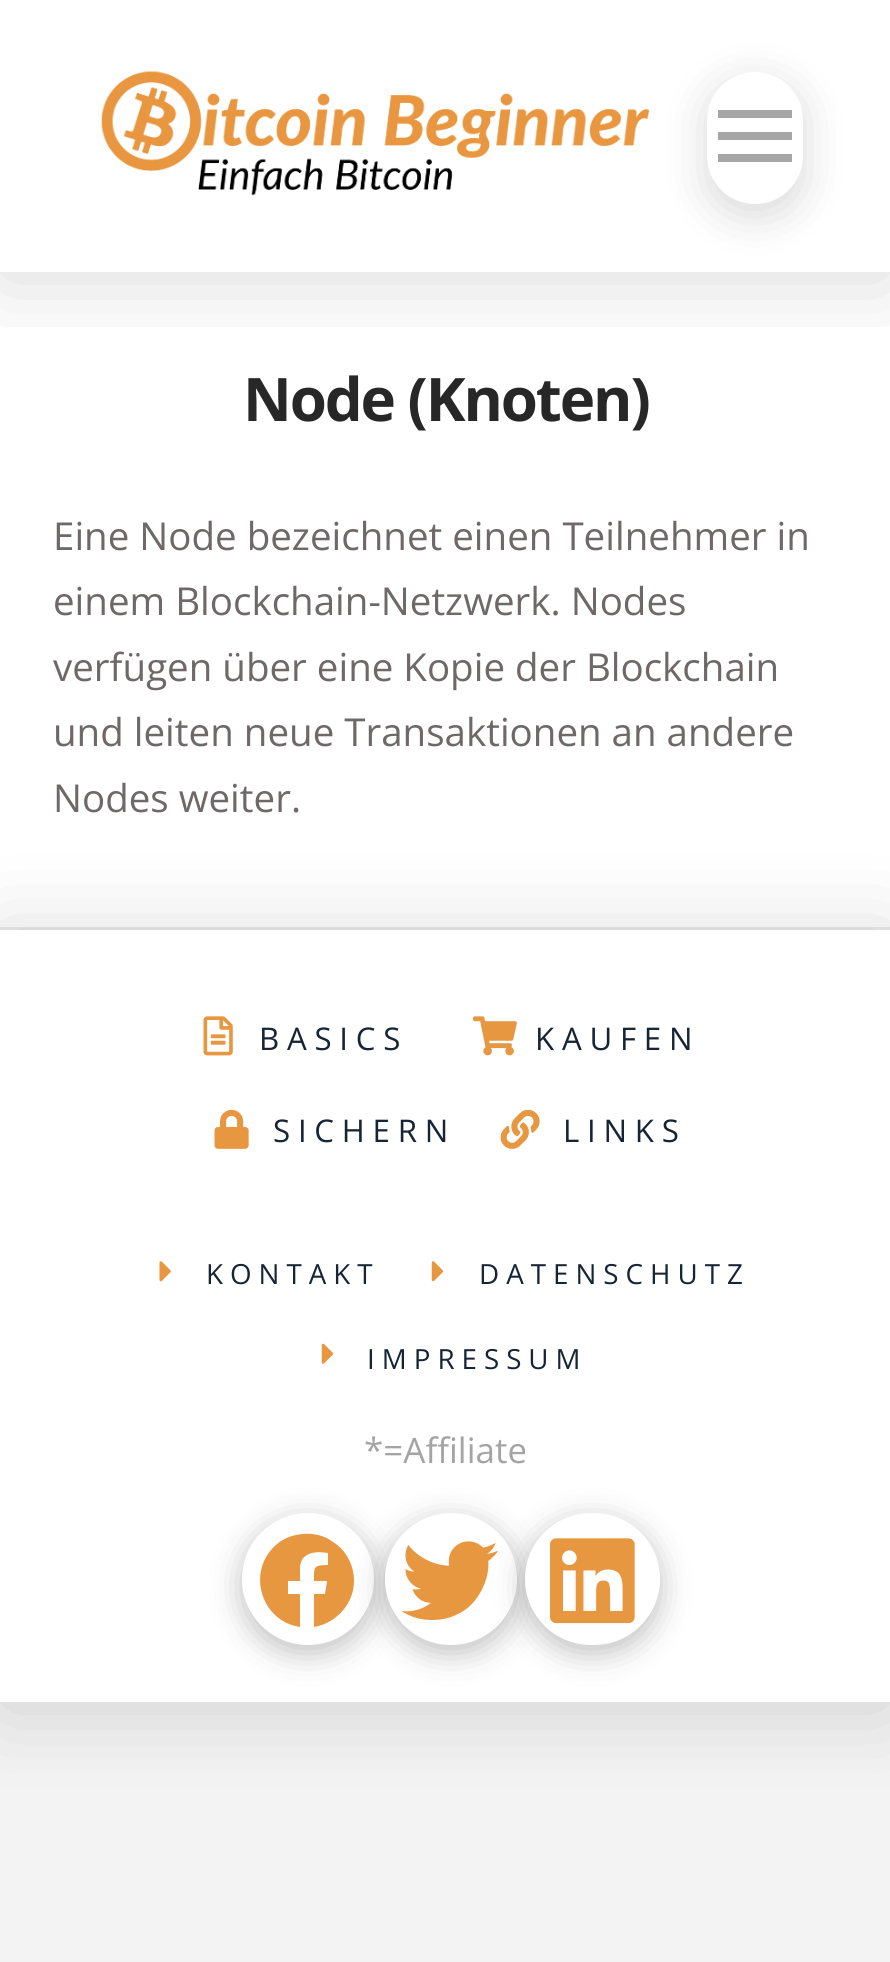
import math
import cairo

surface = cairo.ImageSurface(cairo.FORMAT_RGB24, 890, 1962)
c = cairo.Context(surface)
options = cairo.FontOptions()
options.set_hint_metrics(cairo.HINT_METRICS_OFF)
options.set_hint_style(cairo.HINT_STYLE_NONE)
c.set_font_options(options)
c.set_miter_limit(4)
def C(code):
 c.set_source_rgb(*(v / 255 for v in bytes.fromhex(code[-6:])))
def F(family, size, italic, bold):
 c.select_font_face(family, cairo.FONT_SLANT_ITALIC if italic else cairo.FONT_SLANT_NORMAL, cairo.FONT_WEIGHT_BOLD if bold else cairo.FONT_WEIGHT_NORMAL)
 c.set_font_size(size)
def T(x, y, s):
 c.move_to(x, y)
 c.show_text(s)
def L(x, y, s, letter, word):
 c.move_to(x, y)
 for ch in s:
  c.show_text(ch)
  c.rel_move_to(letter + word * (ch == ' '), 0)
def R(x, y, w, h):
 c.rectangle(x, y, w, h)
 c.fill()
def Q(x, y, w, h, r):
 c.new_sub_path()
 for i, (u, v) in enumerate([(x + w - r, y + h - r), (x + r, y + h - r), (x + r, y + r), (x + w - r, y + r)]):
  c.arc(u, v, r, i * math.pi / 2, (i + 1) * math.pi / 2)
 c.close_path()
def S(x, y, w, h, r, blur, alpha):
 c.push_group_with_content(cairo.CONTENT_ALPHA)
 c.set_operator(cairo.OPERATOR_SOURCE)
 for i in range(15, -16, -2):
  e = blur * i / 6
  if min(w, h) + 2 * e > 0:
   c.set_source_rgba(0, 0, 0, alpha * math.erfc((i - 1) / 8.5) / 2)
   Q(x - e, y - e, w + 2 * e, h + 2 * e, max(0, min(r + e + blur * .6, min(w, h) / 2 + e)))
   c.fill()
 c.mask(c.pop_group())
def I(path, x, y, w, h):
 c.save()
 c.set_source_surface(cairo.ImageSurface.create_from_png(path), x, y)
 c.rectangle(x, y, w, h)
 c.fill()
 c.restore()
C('f3f3f3')
c.paint()
C('ffffff')
R(0,0,890,1702)
c.save()
c.rectangle(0,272,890,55)
c.clip()
C('000000')
S(0,6,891,272,0,44,.15)
c.restore()
I('1.png',101,71,548,125)
C('000000')
S(707,83,96,132,48,22,.15)
C('ffffff')
Q(707,72,96,132,48)
c.fill()
C('a6a6a6')
R(718,110,74,8)
R(718,132,74,8)
R(718,154,74,8)
C('ececec')
R(0,927,890,3)
F('Open Sans',60,0,1)
C('272727')
L(243,421,'Node (Knoten)',-2.1,0)
F('Open Sans',38.5,0,0)
C('6e6868')
T(53,550,'Eine Node bezeichnet einen Teilnehmer in')
T(53,615,'einem Blockchain-Netzwerk. Nodes')
T(53,681,'verfügen über eine Kopie der Blockchain')
T(53,746,'und leiten neue Transaktionen an andere')
T(53,812,'Nodes weiter.')
c.save()
c.set_fill_rule(cairo.FILL_RULE_EVEN_ODD)
c.new_path()
c.move_to(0,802)
c.line_to(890,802)
c.line_to(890,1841)
c.line_to(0,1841)
c.close_path()
c.move_to(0,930)
c.line_to(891,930)
c.line_to(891,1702)
c.line_to(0,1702)
c.close_path()
c.clip()
C('000000')
S(0,935,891,773,0,44,.15)
c.restore()
I('2.png',203,1016,30,40)
F('Open Sans',31.25,0,0)
C('162536')
L(259,1050,'BASICS',7.75,0)
I('3.png',473,1016,44,40)
L(535,1050,'KAUFEN',7.75,0)
I('4.png',214,1109,35,40)
L(273,1142,'SICHERN',7.75,0)
I('5.png',500,1109,40,40)
L(563,1142,'LINKS',7.75,0)
I('6.png',159,1261,12,21)
F('Open Sans',27.75,0,0)
L(206,1284,'KONTAKT',7,0)
I('7.png',431,1261,13,21)
L(479,1284,'DATENSCHUTZ',7,0)
I('8.png',321,1343,13,21)
L(367,1369,'IMPRESSUM',7,0)
F('Open Sans',35,0,0)
C('a5a4a4')
T(364,1463,'*=Affiliate')
C('000000')
S(242,1521,132,132,66,15.5,.25)
C('ffffff')
c.arc(308,1579,66,0,2 * math.pi)
c.fill()
C('000000')
S(385,1521,132,132,66,15.5,.25)
C('e79740')
c.new_path()
c.move_to(354,1581)
c.curve_to(354,1603,337,1623,314,1627)
c.line_to(314,1594)
c.line_to(325,1594)
c.line_to(327,1581)
c.line_to(314,1581)
c.curve_to(314,1567,313,1565,328,1565)
c.line_to(328,1553)
c.curve_to(316,1551,302,1552,300,1566)
c.line_to(300,1581)
c.line_to(288,1581)
c.line_to(288,1594)
c.line_to(300,1594)
c.line_to(300,1627)
c.curve_to(260,1621,246,1570,277,1544)
c.curve_to(284,1538,293,1535,302,1534)
c.curve_to(313,1533,324,1535,333,1542)
c.curve_to(346,1550,354,1565,354,1581)
c.close_path()
c.fill()
C('ffffff')
c.arc(451,1579,66,0,2 * math.pi)
c.fill()
C('000000')
S(525,1521,135,132,66,15.5,.25)
I('9.png',401,1541,98,79)
C('ffffff')
Q(525,1513,135,132,66)
c.fill()
I('10.png',550,1538,85,86)
surface.write_to_png('o.png')
